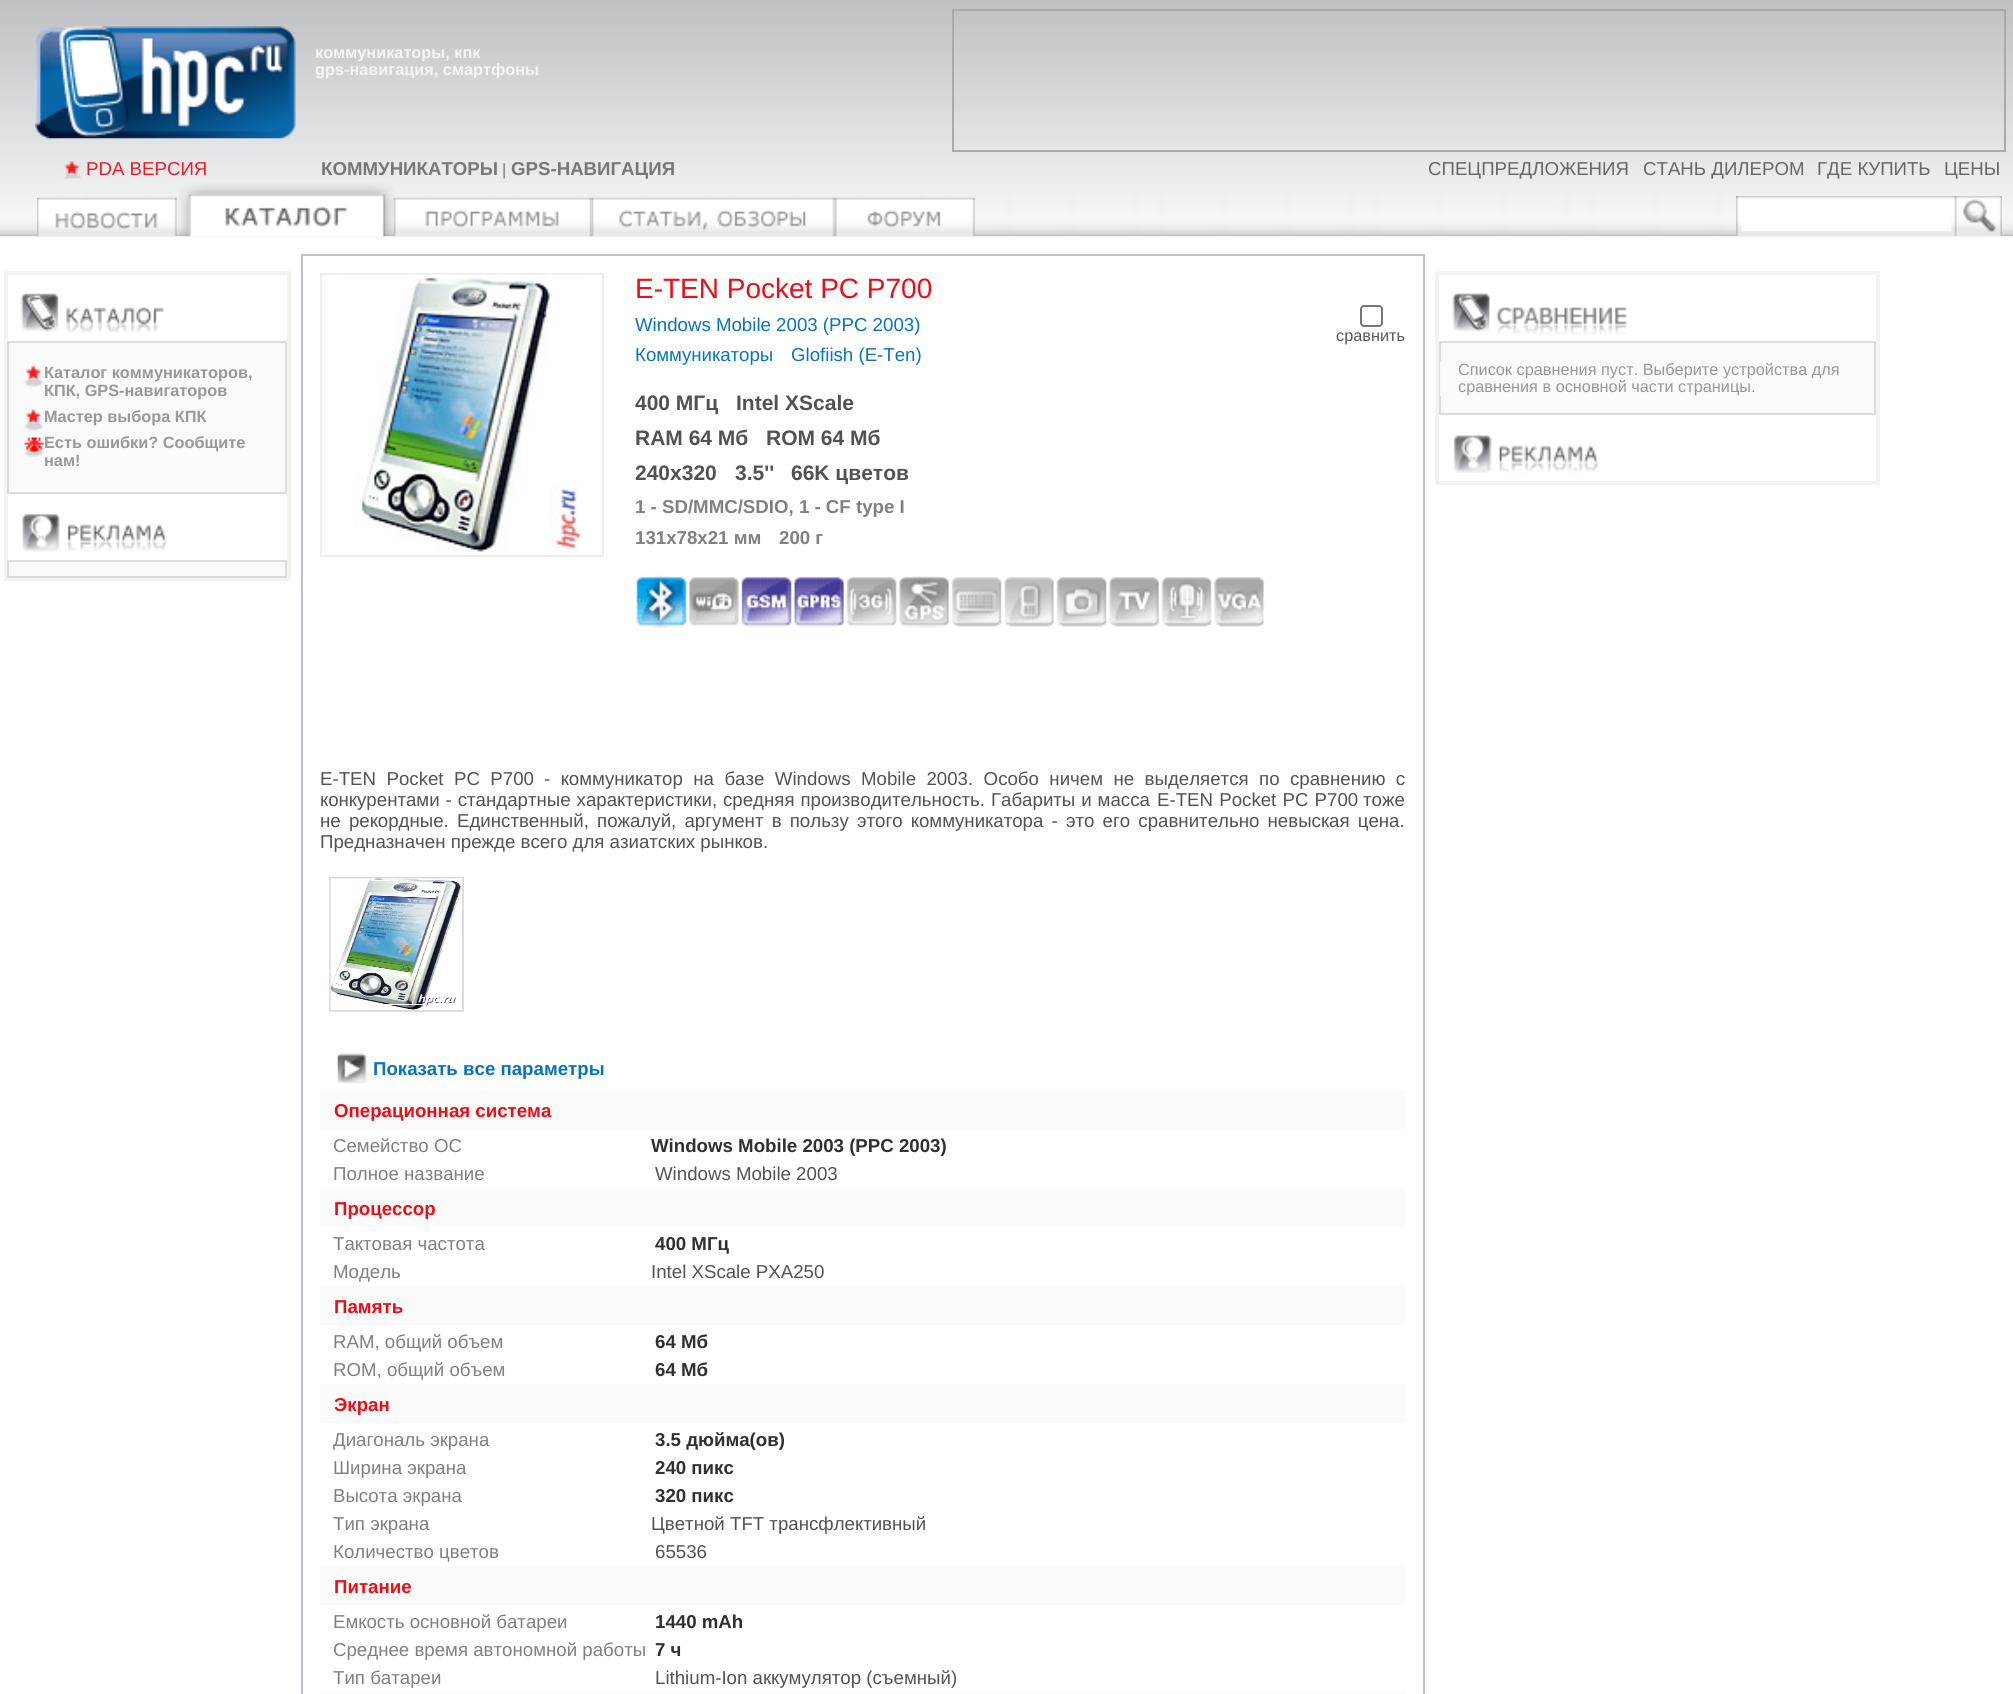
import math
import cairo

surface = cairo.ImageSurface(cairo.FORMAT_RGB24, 2013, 1694)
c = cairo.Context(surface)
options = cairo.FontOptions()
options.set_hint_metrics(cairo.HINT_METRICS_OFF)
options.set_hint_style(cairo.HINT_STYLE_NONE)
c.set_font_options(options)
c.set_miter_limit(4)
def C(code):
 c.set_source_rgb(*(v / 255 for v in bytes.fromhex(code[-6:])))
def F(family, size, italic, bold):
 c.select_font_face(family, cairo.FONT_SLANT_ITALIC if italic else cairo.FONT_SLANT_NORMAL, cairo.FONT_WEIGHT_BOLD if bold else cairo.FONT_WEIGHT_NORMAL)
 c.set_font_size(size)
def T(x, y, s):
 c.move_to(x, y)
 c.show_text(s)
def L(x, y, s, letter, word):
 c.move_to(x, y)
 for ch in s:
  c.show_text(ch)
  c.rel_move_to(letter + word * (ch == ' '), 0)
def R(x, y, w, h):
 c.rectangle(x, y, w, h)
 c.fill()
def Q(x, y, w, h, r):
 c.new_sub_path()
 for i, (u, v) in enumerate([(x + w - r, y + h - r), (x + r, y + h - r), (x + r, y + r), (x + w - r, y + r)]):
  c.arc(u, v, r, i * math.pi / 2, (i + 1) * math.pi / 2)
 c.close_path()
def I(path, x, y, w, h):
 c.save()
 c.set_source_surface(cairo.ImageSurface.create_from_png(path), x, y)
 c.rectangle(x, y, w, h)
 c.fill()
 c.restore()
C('ffffff')
c.paint()
I('1.png',0,0,2013,237)
I('2.png',35,26,261,113)
F('Liberation Sans',16.3,0,1)
C('f4f5f5')
T(315,58,'коммуникаторы, кпк')
T(315,75,'gps-навигация, смартфоны')
c.rectangle(953,10,1052,141)
C('aaaaaa')
c.stroke()
I('3.png',63,161,18,18)
F('Liberation Sans',18.67,0,0)
C('ed1c24')
T(86,175,'PDA ВЕРСИЯ')
F('Liberation Sans',18.67,0,1)
C('777879')
T(321,175,'КОММУНИКАТОРЫ')
F('Liberation Sans',16.3,0,0)
T(502,175,'|')
F('Liberation Sans',18.67,0,1)
T(511,175,'GPS-НАВИГАЦИЯ')
F('Liberation Sans',18.67,0,0)
C('666768')
T(1428,175,'СПЕЦПРЕДЛОЖЕНИЯ')
T(1643,175,'СТАНЬ ДИЛЕРОМ')
T(1817,175,'ГДЕ КУПИТЬ')
T(1944,175,'ЦЕНЫ')
I('4.png',36,197,141,40)
I('5.png',178,183,216,54)
I('6.png',393,197,199,40)
I('7.png',591,197,244,40)
I('8.png',835,197,140,40)
I('9.png',1736,196,266,40)
c.rectangle(6,273,283,306)
C('f3f3f4')
c.set_line_width(4)
c.stroke()
I('10.png',20,293,145,40)
C('f9fafa')
c.rectangle(8,342,278,151)
c.fill_preserve()
C('dbdcdd')
c.set_line_width(2)
c.stroke()
I('11.png',24,365,20,22)
F('Liberation Sans',16.3,0,1)
C('97989a')
T(44,378,'Каталог коммуникаторов,')
T(44,396,'КПК, GPS-навигаторов')
I('12.png',24,409,20,22)
T(44,422,'Мастер выбора КПК')
I('13.png',24,437,20,20)
T(44,448,'Есть ошибки? Сообщите')
T(44,466,'нам!')
I('14.png',22,514,145,38)
C('f9fafa')
c.rectangle(8,561,278,16)
c.fill_preserve()
C('dbdcdd')
c.stroke()
c.rectangle(302,255,1122,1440)
C('c2c1ca')
c.stroke()
c.rectangle(321,274,282,282)
C('eeeeee')
c.stroke()
I('15.png',340,274,244,281)
F('Liberation Sans',28,0,0)
C('eb0e17')
T(635,298,'E-TEN Pocket PC P700')
F('Liberation Sans',18.67,0,0)
C('0973ba')
T(635,331,'Windows Mobile 2003 (PPC 2003)')
T(635,361,'Коммуникаторы')
T(791,361,'Glofiish (E-Ten)')
F('Liberation Sans',21,0,1)
C('525254')
T(635,410,'400 МГц')
T(736,410,'Intel XScale')
T(635,445,'RAM 64 Мб')
T(766,445,'ROM 64 Мб')
T(635,480,'240x320')
T(735,480,'3.5\'\'')
T(791,480,'66K цветов')
F('Liberation Sans',18.67,0,1)
C('808080')
T(635,513,'1 - SD/MMC/SDIO, 1 - CF type I')
T(635,544,'131x78x21 мм')
T(779,544,'200 г')
I('16.png',636,575,51,54)
I('17.png',689,577,50,50)
I('18.png',741,576,51,51)
I('19.png',794,576,50,51)
I('20.png',846,577,51,50)
I('21.png',899,576,50,52)
I('22.png',951,577,51,50)
I('23.png',1004,577,50,50)
I('24.png',1056,577,51,50)
I('25.png',1109,577,50,50)
I('26.png',1161,577,51,50)
I('27.png',1214,577,51,50)
Q(1361,306,21,20,3)
C('767676')
c.stroke()
F('Liberation Sans',16.3,0,0)
C('58585a')
T(1336,341,'сравнить')
F('Liberation Sans',18.67,0,0)
C('525254')
L(320,785,'E-TEN Pocket PC P700',0,5.25)
L(544,785,'- коммуникатор на базе Windows Mobile 2003. Особо ничем не выделяется по сравнению с',0,5.25)
L(320,806,'конкурентами - стандартные характеристики, средняя производительность. Габариты и масса',0,.75)
L(1157,806,'E-TEN Pocket PC P700',0,1)
T(1363,806,'тоже')
L(320,827,'не рекордные. Единственный, пожалуй, аргумент в пользу этого коммуникатора - это его сравнительно невыская цена.',0,3)
T(320,848,'Предназначен прежде всего для азиатских рынков.')
c.rectangle(330,878,133,133)
C('dddddd')
c.stroke()
I('28.png',330,878,132,132)
I('29.png',337,1053,31,31)
F('Liberation Sans',18.67,0,1)
C('0973ba')
T(373,1075,'Показать все параметры')
C('fafafa')
R(320,1090,1085,39)
C('eb0e17')
T(334,1117,'Операционная система')
F('Liberation Sans',18.67,0,0)
C('808080')
T(333,1152,'Семейство ОС')
F('Liberation Sans',18.67,0,1)
C('303030')
T(651,1152,'Windows Mobile 2003 (PPC 2003)')
F('Liberation Sans',18.67,0,0)
C('808080')
T(333,1180,'Полное название')
C('525254')
T(655,1180,'Windows Mobile 2003')
C('fafafa')
R(320,1188,1085,39)
F('Liberation Sans',18.67,0,1)
C('eb0e17')
T(334,1215,'Процессор')
F('Liberation Sans',18.67,0,0)
C('808080')
T(333,1250,'Тактовая частота')
F('Liberation Sans',18.67,0,1)
C('303030')
T(655,1250,'400 МГц')
F('Liberation Sans',18.67,0,0)
C('808080')
T(333,1278,'Модель')
C('525254')
T(651,1278,'Intel XScale PXA250')
C('fafafa')
R(320,1286,1085,39)
F('Liberation Sans',18.67,0,1)
C('eb0e17')
T(334,1313,'Память')
F('Liberation Sans',18.67,0,0)
C('808080')
T(333,1348,'RAM, общий объем')
F('Liberation Sans',18.67,0,1)
C('303030')
T(655,1348,'64 Мб')
F('Liberation Sans',18.67,0,0)
C('808080')
T(333,1376,'ROM, общий объем')
F('Liberation Sans',18.67,0,1)
C('303030')
T(655,1376,'64 Мб')
C('fafafa')
R(320,1384,1085,39)
C('eb0e17')
T(334,1411,'Экран')
F('Liberation Sans',18.67,0,0)
C('808080')
T(333,1446,'Диагональ экрана')
F('Liberation Sans',18.67,0,1)
C('303030')
T(655,1446,'3.5 дюйма(ов)')
F('Liberation Sans',18.67,0,0)
C('808080')
T(333,1474,'Ширина экрана')
F('Liberation Sans',18.67,0,1)
C('303030')
T(655,1474,'240 пикс')
F('Liberation Sans',18.67,0,0)
C('808080')
T(333,1502,'Высота экрана')
F('Liberation Sans',18.67,0,1)
C('303030')
T(655,1502,'320 пикс')
F('Liberation Sans',18.67,0,0)
C('808080')
T(333,1530,'Тип экрана')
C('525254')
T(651,1530,'Цветной TFT трансфлективный')
C('808080')
T(333,1558,'Количество цветов')
C('525254')
T(655,1558,'65536')
C('fafafa')
R(320,1566,1085,39)
F('Liberation Sans',18.67,0,1)
C('eb0e17')
T(334,1593,'Питание')
F('Liberation Sans',18.67,0,0)
C('808080')
T(333,1628,'Емкость основной батареи')
F('Liberation Sans',18.67,0,1)
C('303030')
T(655,1628,'1440 mAh')
F('Liberation Sans',18.67,0,0)
C('808080')
T(333,1656,'Среднее время автономной работы')
F('Liberation Sans',18.67,0,1)
C('303030')
T(655,1656,'7 ч')
F('Liberation Sans',18.67,0,0)
C('808080')
T(333,1684,'Тип батареи')
C('525254')
T(655,1684,'Lithium-Ion аккумулятор (съемный)')
C('fafafa')
R(320,1692,1085,2)
c.rectangle(1437,273,441,210)
C('f3f3f4')
c.set_line_width(4)
c.stroke()
I('30.png',1452,293,176,42)
C('f9fafa')
c.rectangle(1440,342,435,72)
c.fill_preserve()
C('dbdcdd')
c.set_line_width(2)
c.stroke()
C('f7f8f8')
R(1440,361,1,35)
F('Liberation Sans',16.3,0,0)
C('97989a')
T(1458,375,'Список сравнения пуст. Выберите устройства для')
T(1458,392,'сравнения в основной части страницы.')
I('31.png',1453,435,146,38)
surface.write_to_png('o.png')
